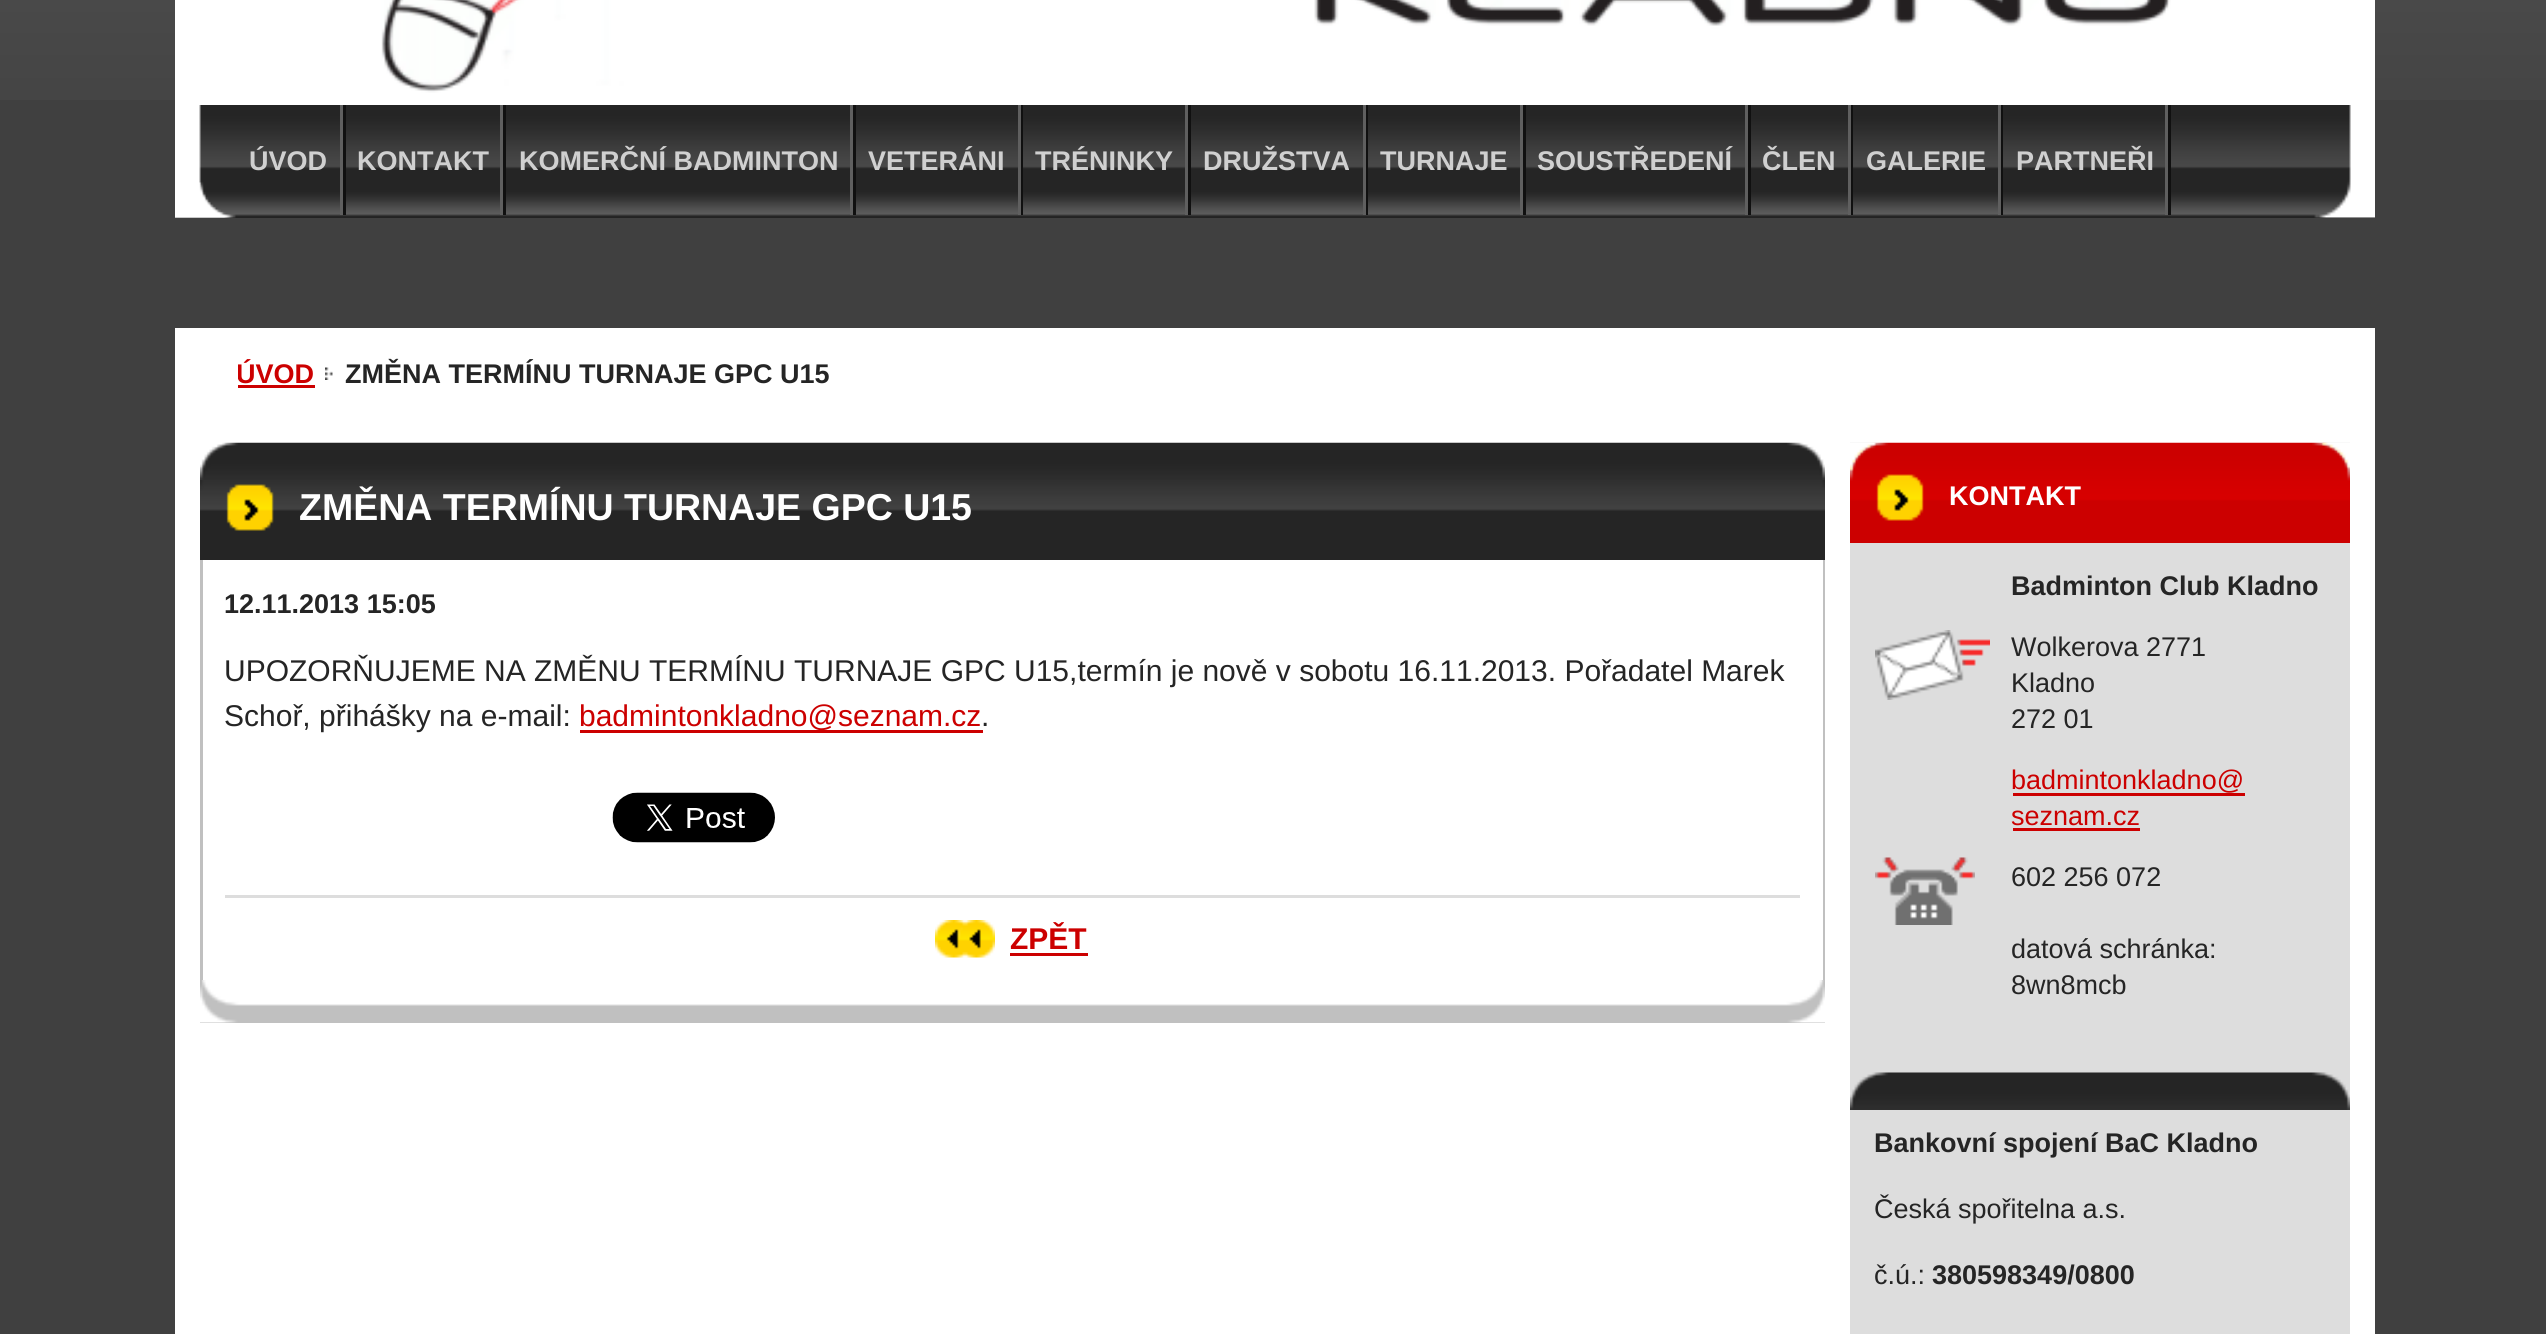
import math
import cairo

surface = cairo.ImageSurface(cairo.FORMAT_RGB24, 2546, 1334)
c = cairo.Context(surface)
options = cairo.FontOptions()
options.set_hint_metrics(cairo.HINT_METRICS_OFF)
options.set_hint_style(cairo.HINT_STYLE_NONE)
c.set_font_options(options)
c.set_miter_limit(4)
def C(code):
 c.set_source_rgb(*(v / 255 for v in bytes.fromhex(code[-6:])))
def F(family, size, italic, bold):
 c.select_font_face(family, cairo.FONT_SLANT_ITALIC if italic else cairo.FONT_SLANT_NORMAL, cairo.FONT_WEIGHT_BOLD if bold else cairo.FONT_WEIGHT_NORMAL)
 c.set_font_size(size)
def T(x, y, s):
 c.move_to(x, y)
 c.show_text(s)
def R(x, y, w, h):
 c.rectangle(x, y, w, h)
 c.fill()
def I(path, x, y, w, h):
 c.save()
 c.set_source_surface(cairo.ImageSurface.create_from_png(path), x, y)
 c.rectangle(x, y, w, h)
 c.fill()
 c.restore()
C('404040')
c.paint()
I('1.png',0,0,2546,100)
C('ffffff')
R(175,0,2200,105)
I('2.png',381,0,1790,93)
C('222222')
R(175,217,2200,1)
I('3.png',175,105,2200,113)
C('101010')
R(343,105,3,110)
C('5f5f5f')
R(340,105,3,110)
F('Liberation Sans',27,0,1)
C('d0d0d0')
T(249,170,'ÚVOD')
C('101010')
R(503,105,3,110)
C('5f5f5f')
R(500,105,3,110)
C('d0d0d0')
T(357,170,'KONTAKT')
C('101010')
R(853,105,3,110)
C('5f5f5f')
R(850,105,3,110)
C('d0d0d0')
T(519,170,'KOMERČNÍ BADMINTON')
C('101010')
R(1021,105,2,110)
C('5f5f5f')
R(1018,105,3,110)
C('d0d0d0')
T(868,170,'VETERÁNI')
C('101010')
R(1188,105,3,110)
C('5f5f5f')
R(1185,105,3,110)
C('d0d0d0')
T(1035,170,'TRÉNINKY')
C('101010')
R(1366,105,2,110)
C('5f5f5f')
R(1363,105,3,110)
C('d0d0d0')
T(1203,170,'DRUŽSTVA')
C('101010')
R(1523,105,3,110)
C('5f5f5f')
R(1520,105,3,110)
C('d0d0d0')
T(1380,170,'TURNAJE')
C('101010')
R(1748,105,3,110)
C('5f5f5f')
R(1745,105,3,110)
C('d0d0d0')
T(1537,170,'SOUSTŘEDENÍ')
C('101010')
R(1851,105,2,110)
C('5f5f5f')
R(1848,105,3,110)
C('d0d0d0')
T(1762,170,'ČLEN')
C('101010')
R(2001,105,2,110)
C('5f5f5f')
R(1998,105,3,110)
C('d0d0d0')
T(1866,170,'GALERIE')
C('101010')
R(2168,105,3,110)
C('5f5f5f')
R(2165,105,3,110)
C('d0d0d0')
T(2016,170,'PARTNEŘI')
I('4.png',175,182,58,36)
C('ffffff')
R(175,328,2200,1006)
c.save()
c.rectangle(238,328,592,65)
c.clip()
C('cc0000')
T(236,383,'ÚVOD')
c.restore()
C('cc0000')
R(238,385,77,3)
I('5.png',325,367,8,13)
C('252525')
T(345,383,'ZMĚNA TERMÍNU TURNAJE GPC U15')
I('6.png',200,442,1625,38)
C('c0c0c0')
R(1823,560,2,420)
R(203,1022,1622,1)
R(200,560,3,463)
I('7.png',200,980,1625,43)
C('252525')
R(200,531,1625,29)
I('8.png',200,480,1625,51)
F('Liberation Sans',37.5,0,1)
C('ffffff')
T(299,520,'ZMĚNA TERMÍNU TURNAJE GPC U15')
F('Liberation Sans',27,0,1)
C('252525')
T(224,613,'12.11.2013 15:05')
F('Liberation Sans',30,0,0)
T(224,681,'UPOZORŇUJEME NA ZMĚNU TERMÍNU TURNAJE GPC U15,termín je nově v sobotu 16.11.2013. Pořadatel Marek')
T(224,726,'Schoř, přihášky na e-mail:')
C('cc0000')
R(580,730,403,3)
T(579,726,'badmintonkladno@seznam.cz')
C('252525')
T(981,726,'.')
I('9.png',612,792,163,51)
C('dddddd')
R(225,895,1575,3)
I('10.png',935,920,60,38)
F('Liberation Sans',30,0,1)
C('cc0000')
T(1010,949,'ZPĚT')
R(1010,953,78,3)
C('dddddd')
R(1850,543,500,530)
I('12.png',1850,442,500,79)
I('11.png',1850,442,500,29)
C('cc0000')
R(1850,521,500,22)
F('Liberation Sans',27,0,1)
C('ffffff')
T(1949,505,'KONTAKT')
C('252525')
T(2011,595,'Badminton Club Kladno')
I('13.png',1875,630,115,70)
F('Liberation Sans',27,0,0)
T(2011,656,'Wolkerova 2771')
T(2011,692,'Kladno')
T(2011,728,'272 01')
C('cc0000')
T(2011,789,'badmintonkladno@')
R(2013,793,232,3)
T(2011,825,'seznam.cz')
R(2013,828,127,3)
I('14.png',1875,857,100,68)
C('252525')
T(2011,886,'602 256 072')
T(2011,958,'datová schránka:')
T(2011,994,'8wn8mcb')
I('15.png',1850,1072,500,38)
C('dddddd')
R(1850,1110,500,224)
F('Liberation Sans',27,0,1)
C('252525')
T(1874,1152,'Bankovní spojení BaC Kladno')
F('Liberation Sans',27,0,0)
T(1874,1218,'Česká spořitelna a.s.')
T(1874,1284,'č.ú.:')
F('Liberation Sans',27,0,1)
T(1932,1284,'380598349/0800')
surface.write_to_png('o.png')
